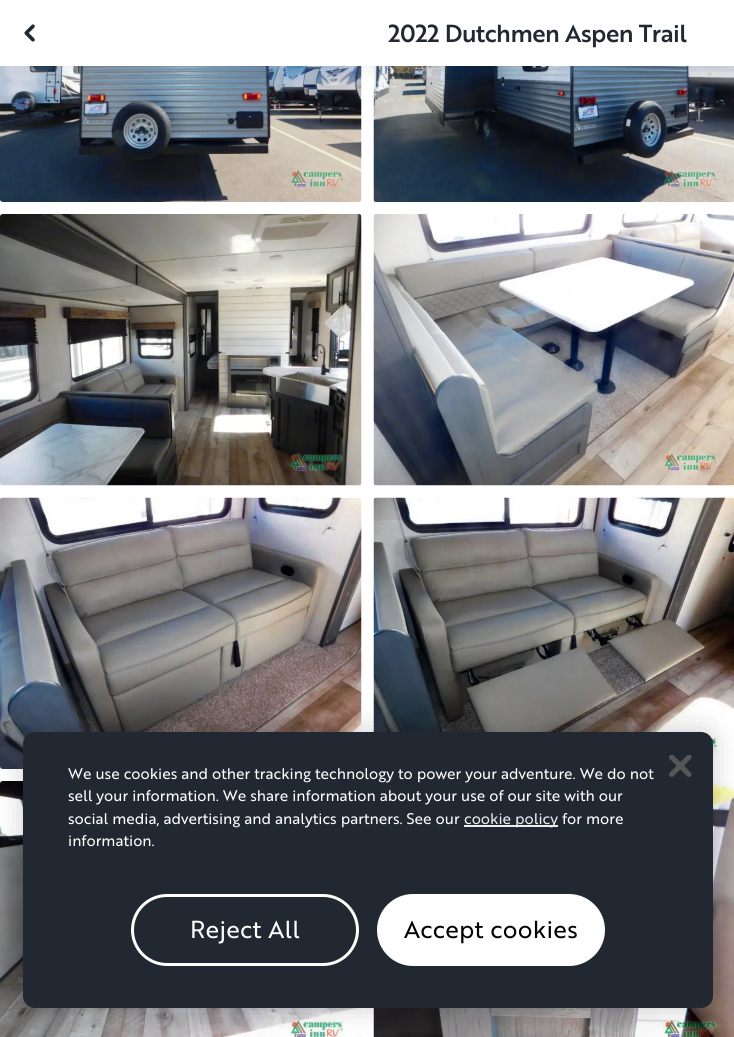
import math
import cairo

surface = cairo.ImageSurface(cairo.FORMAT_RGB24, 734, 1037)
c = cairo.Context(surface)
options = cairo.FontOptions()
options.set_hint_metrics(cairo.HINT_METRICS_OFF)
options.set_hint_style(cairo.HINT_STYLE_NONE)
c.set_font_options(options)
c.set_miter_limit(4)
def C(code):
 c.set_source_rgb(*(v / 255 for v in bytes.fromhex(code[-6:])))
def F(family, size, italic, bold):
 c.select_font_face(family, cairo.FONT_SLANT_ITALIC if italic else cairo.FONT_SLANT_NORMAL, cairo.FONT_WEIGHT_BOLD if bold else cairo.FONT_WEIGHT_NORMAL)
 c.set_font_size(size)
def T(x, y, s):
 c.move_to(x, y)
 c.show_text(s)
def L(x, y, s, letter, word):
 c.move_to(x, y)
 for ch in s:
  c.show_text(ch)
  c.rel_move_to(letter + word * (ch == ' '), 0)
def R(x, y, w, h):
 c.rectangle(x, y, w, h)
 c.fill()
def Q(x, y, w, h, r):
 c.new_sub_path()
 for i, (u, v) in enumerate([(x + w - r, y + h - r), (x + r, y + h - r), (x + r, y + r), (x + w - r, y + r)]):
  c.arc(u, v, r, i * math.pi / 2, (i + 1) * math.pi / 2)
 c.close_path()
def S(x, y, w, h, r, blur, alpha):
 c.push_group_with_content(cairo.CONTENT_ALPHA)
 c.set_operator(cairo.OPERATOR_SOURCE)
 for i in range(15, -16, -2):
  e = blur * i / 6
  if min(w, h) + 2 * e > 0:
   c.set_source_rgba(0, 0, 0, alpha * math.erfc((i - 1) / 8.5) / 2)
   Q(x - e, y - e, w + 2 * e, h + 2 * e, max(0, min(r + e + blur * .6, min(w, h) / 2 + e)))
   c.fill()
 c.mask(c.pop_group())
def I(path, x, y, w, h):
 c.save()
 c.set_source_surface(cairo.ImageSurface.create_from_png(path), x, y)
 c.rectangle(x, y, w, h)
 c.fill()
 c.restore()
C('ffffff')
c.paint()
I('2.png',0,66,362,136)
I('6.png',373,66,361,136)
C('0f0f0f')
S(0,0,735,66,0,12,.1)
C('ffffff')
R(0,0,734,66)
I('1.png',24,24,11,18)
F('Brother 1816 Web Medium',24,0,0)
C('212831')
L(388,42,'2022 Dutchmen Aspen Trail',-.5,0)
I('3.png',0,214,362,272)
I('4.png',0,497,362,272)
I('5.png',0,781,362,256)
I('7.png',373,214,361,272)
I('8.png',373,497,361,272)
I('9.png',373,781,361,256)
C('000000')
S(23,732,690,276,12,13.5,.2)
C('212831')
Q(23,732,690,276,12)
c.fill()
F('Brother 1816 Web',15,0,0)
C('ffffff')
T(68,779,'We use cookies and other tracking technology to power your adventure. We do not')
T(68,801,'sell your information. We share information about your use of our site with our')
T(68,824,'social media, advertising and analytics partners. See our')
C('e6f0ef')
R(464,825,94,2)
T(464,824,'cookie policy')
C('ffffff')
T(562,824,'for more')
T(68,846,'information.')
Q(132.5,895.5,225,69,34.5)
c.set_line_width(3)
c.stroke()
F('Brother 1816 Web',24,0,0)
L(190,938,'Reject All',.25,0)
Q(377,894,228,72,36)
c.fill()
C('000000')
L(404,938,'Accept cookies',.25,0)
I('10.png',669,755,23,22)
surface.write_to_png('o.png')
